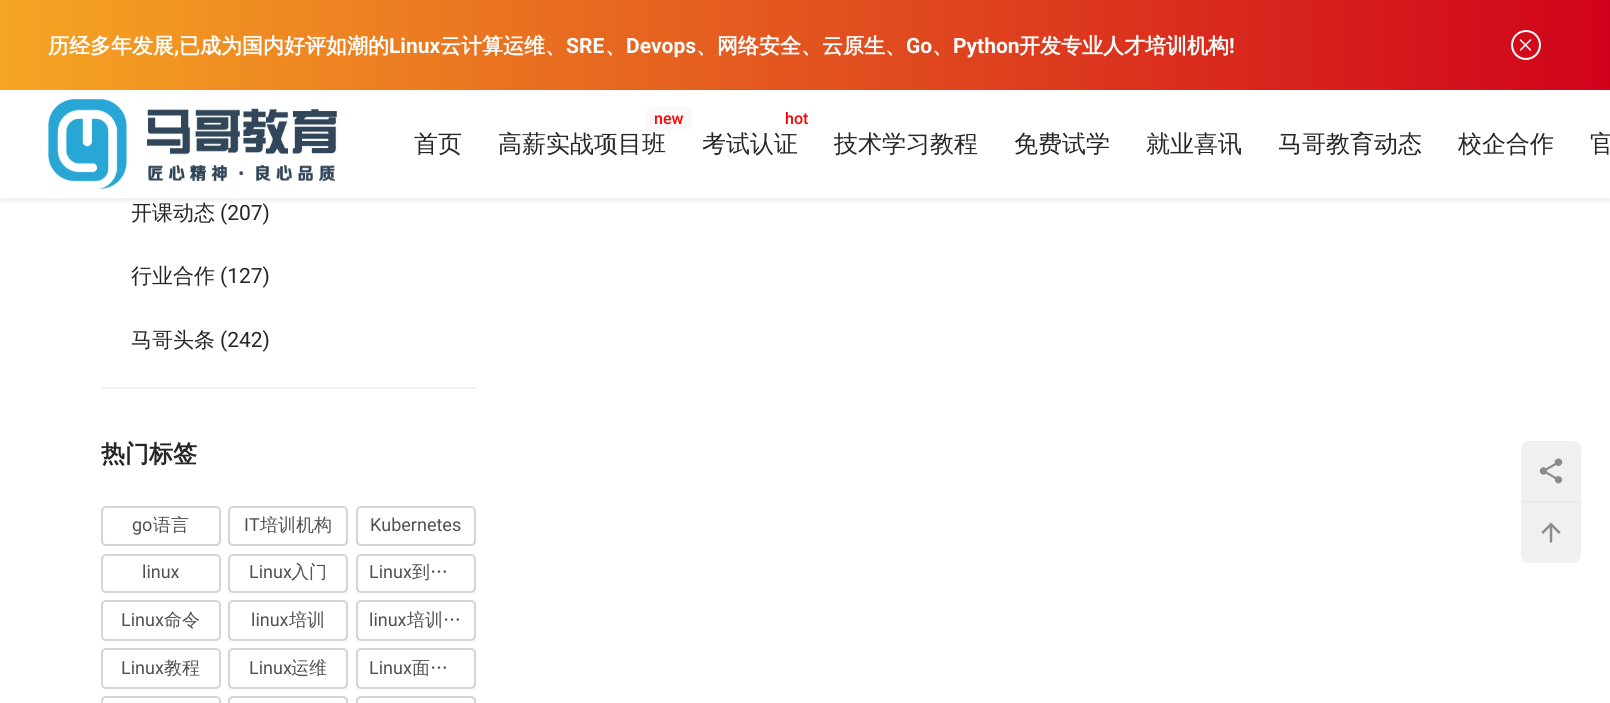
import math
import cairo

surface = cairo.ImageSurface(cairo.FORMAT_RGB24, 1610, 703)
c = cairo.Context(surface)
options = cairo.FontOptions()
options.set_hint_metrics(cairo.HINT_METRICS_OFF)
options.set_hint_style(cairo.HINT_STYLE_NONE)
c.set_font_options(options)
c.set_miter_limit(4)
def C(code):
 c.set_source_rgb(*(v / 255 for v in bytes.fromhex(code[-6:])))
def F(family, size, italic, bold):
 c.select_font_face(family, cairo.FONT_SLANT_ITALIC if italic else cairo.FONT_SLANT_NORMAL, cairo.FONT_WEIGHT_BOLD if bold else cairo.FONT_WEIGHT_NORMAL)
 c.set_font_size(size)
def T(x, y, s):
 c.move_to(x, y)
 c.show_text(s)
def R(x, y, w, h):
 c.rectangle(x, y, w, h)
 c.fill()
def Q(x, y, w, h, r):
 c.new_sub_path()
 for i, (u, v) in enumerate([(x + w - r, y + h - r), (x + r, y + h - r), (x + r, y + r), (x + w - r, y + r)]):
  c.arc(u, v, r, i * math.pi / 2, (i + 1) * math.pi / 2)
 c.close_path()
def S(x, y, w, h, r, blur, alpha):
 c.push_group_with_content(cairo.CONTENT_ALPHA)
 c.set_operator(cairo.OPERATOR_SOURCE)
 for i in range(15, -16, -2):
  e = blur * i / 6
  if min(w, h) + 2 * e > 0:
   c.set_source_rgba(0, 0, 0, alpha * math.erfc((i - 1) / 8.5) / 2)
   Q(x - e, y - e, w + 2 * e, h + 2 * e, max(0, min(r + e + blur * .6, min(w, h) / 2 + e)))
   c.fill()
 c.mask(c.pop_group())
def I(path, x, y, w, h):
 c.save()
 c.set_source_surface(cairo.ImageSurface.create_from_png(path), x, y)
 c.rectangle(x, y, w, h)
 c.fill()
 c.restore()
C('ffffff')
c.paint()
c.save()
c.rectangle(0,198,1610,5)
c.clip()
C('000000')
S(0,92,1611,108,0,4,.1)
c.restore()
gradient = cairo.LinearGradient(0,45,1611,45)
gradient.add_color_stop_rgba(0,0.961,0.651,0.137,1)
gradient.add_color_stop_rgba(1,0.816,0.008,0.106,1)
c.set_source(gradient)
R(0,0,1610,90)
F('WenQuanYi Zen Hei',21,0,1)
C('ffffff')
T(48,53,'历经多年发展')
F('Roboto',21,0,1)
T(174,53,',')
F('WenQuanYi Zen Hei',21,0,1)
T(179,53,'已成为国内好评如潮的')
F('Roboto',21,0,1)
T(389,53,'Linux')
F('WenQuanYi Zen Hei',21,0,1)
T(440,53,'云计算运维、')
F('Roboto',21,0,1)
T(566,53,'SRE')
F('WenQuanYi Zen Hei',21,0,1)
T(605,53,'、')
F('Roboto',21,0,1)
T(626,53,'Devops')
F('WenQuanYi Zen Hei',21,0,1)
T(696,53,'、网络安全、云原生、')
F('Roboto',21,0,1)
T(906,53,'Go')
F('WenQuanYi Zen Hei',21,0,1)
T(932,53,'、')
F('Roboto',21,0,1)
T(953,53,'Python')
F('WenQuanYi Zen Hei',21,0,1)
T(1019,53,'开发专业人才培训机构')
F('Roboto',21,0,1)
T(1229,53,'!')
c.new_path()
c.arc(1526,45,14,0,2 * math.pi)
c.stroke()
I('1.png',1519,39,13,12)
I('2.png',48,99,289,90)
F('WenQuanYi Zen Hei Medium',24,0,0)
C('262626')
T(414,152,'首页')
C('faf8f8')
c.new_path()
c.move_to(653,107)
c.line_to(684,107)
c.curve_to(688.5,107,692,110.5,692,115)
c.line_to(692,123)
c.curve_to(692,127.5,688.5,131,684,131)
c.line_to(645,131)
c.line_to(645,115)
c.curve_to(645,110.5,648.5,107,653,107)
c.close_path()
c.fill()
F('Roboto Medium',16,0,0)
C('fe0303')
T(654,124,'new')
F('WenQuanYi Zen Hei Medium',24,0,0)
C('262626')
T(498,152,'高薪实战项目班')
F('Roboto Medium',16,0,0)
C('f70202')
T(785,124,'hot')
F('WenQuanYi Zen Hei Medium',24,0,0)
C('262626')
T(702,152,'考试认证')
T(834,152,'技术学习教程')
T(1014,152,'免费试学')
T(1146,152,'就业喜讯')
T(1278,152,'马哥教育动态')
T(1458,152,'校企合作')
T(1590,152,'官')
C('f0f0f0')
R(101,387,375,2)
F('WenQuanYi Zen Hei Medium',21,0,0)
C('262626')
T(131,220,'开课动态')
F('Roboto',21,0,0)
T(220,220,'(207)')
F('WenQuanYi Zen Hei Medium',21,0,0)
T(131,283,'行业合作')
F('Roboto',21,0,0)
T(220,283,'(127)')
F('WenQuanYi Zen Hei Medium',21,0,0)
T(131,347,'马哥头条')
F('Roboto',21,0,0)
T(220,347,'(242)')
F('WenQuanYi Zen Hei',24,0,1)
T(101,462,'热门标签')
Q(102,507,118,38,4)
C('d4d4d4')
c.stroke()
F('Roboto',18,0,0)
C('515151')
T(132,531,'go')
F('WenQuanYi Zen Hei Medium',18,0,0)
T(153,531,'语言')
Q(229,507,118,38,4)
C('d4d4d4')
c.stroke()
F('Roboto',18,0,0)
C('515151')
T(244,531,'IT')
F('WenQuanYi Zen Hei Medium',18,0,0)
T(260,531,'培训机构')
Q(357,507,118,38,4)
C('d4d4d4')
c.stroke()
F('Roboto',18,0,0)
C('515151')
T(370,531,'Kubernetes')
Q(102,555,118,37,4)
C('d4d4d4')
c.stroke()
C('515151')
T(142,578,'linux')
Q(229,555,118,37,4)
C('d4d4d4')
c.stroke()
C('515151')
T(249,578,'Linux')
F('WenQuanYi Zen Hei Medium',18,0,0)
T(291,578,'入门')
Q(357,555,118,37,4)
C('d4d4d4')
c.stroke()
F('Roboto',18,0,0)
C('515151')
T(369,578,'Linux')
F('WenQuanYi Zen Hei Medium',18,0,0)
T(412,578,'到…')
Q(102,601,118,39,4)
C('d4d4d4')
c.stroke()
F('Roboto',18,0,0)
C('515151')
T(121,626,'Linux')
F('WenQuanYi Zen Hei Medium',18,0,0)
T(164,626,'命令')
Q(229,601,118,39,4)
C('d4d4d4')
c.stroke()
F('Roboto',18,0,0)
C('515151')
T(251,626,'linux')
F('WenQuanYi Zen Hei Medium',18,0,0)
T(289,626,'培训')
Q(357,601,118,39,4)
C('d4d4d4')
c.stroke()
F('Roboto',18,0,0)
C('515151')
T(369,626,'linux')
F('WenQuanYi Zen Hei Medium',18,0,0)
T(407,626,'培训…')
Q(102,649,118,39,4)
C('d4d4d4')
c.stroke()
F('Roboto',18,0,0)
C('515151')
T(121,674,'Linux')
F('WenQuanYi Zen Hei Medium',18,0,0)
T(164,674,'教程')
Q(229,649,118,39,4)
C('d4d4d4')
c.stroke()
F('Roboto',18,0,0)
C('515151')
T(249,674,'Linux')
F('WenQuanYi Zen Hei Medium',18,0,0)
T(291,674,'运维')
Q(357,649,118,39,4)
C('d4d4d4')
c.stroke()
F('Roboto',18,0,0)
C('515151')
T(369,674,'Linux')
F('WenQuanYi Zen Hei Medium',18,0,0)
T(412,674,'面…')
Q(102,697,118,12,4)
C('d4d4d4')
c.stroke()
Q(229,697,118,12,4)
c.stroke()
Q(357,697,118,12,4)
c.stroke()
C('f0f0f0')
c.new_path()
c.move_to(1529,441)
c.line_to(1573,441)
c.curve_to(1577.5,441,1581,444.5,1581,449)
c.line_to(1581,501)
c.line_to(1521,501)
c.line_to(1521,449)
c.curve_to(1521,444.5,1524.5,441,1529,441)
c.close_path()
c.fill()
I('3.png',1539,458,24,26)
C('e9e9e9')
R(1521,501,60,2)
C('f0f0f0')
c.new_path()
c.move_to(1521,503)
c.line_to(1581,503)
c.line_to(1581,555)
c.curve_to(1581,559.5,1577.5,563,1573,563)
c.line_to(1529,563)
c.curve_to(1524.5,563,1521,559.5,1521,555)
c.close_path()
c.fill()
I('4.png',1541,522,20,21)
surface.write_to_png('o.png')
